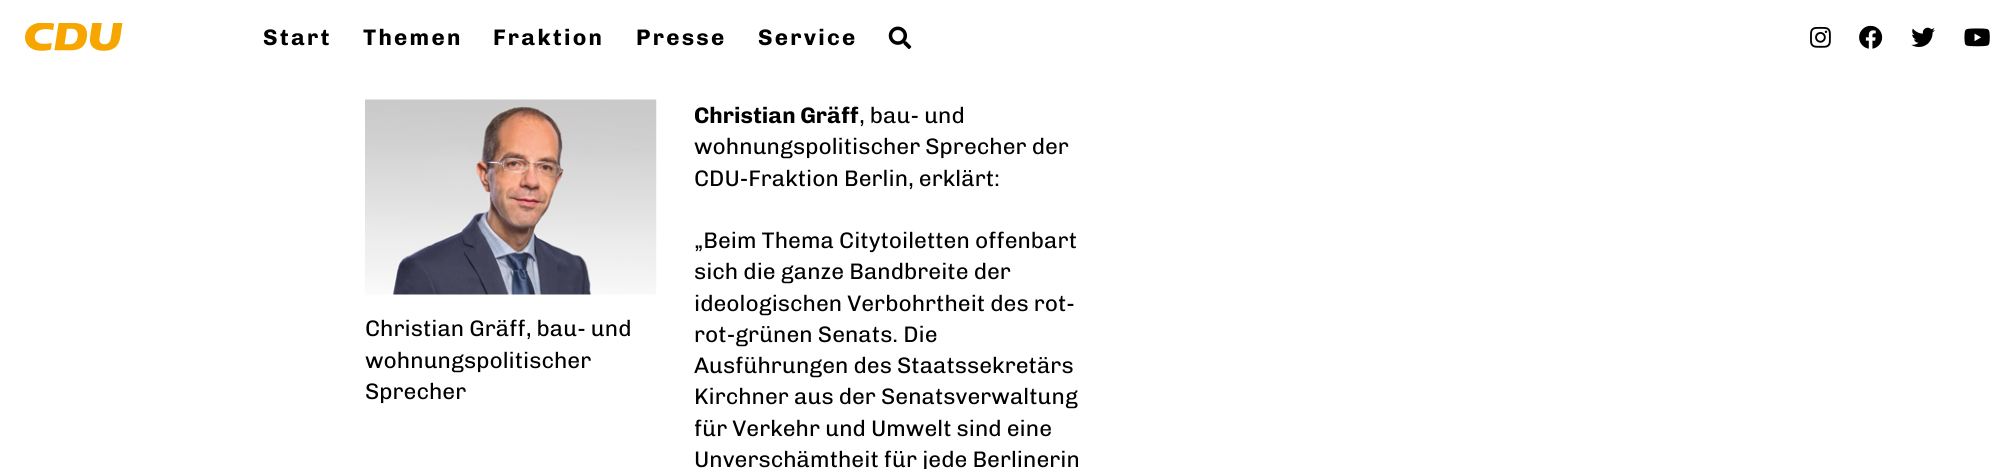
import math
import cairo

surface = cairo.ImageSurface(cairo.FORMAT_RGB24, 2014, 469)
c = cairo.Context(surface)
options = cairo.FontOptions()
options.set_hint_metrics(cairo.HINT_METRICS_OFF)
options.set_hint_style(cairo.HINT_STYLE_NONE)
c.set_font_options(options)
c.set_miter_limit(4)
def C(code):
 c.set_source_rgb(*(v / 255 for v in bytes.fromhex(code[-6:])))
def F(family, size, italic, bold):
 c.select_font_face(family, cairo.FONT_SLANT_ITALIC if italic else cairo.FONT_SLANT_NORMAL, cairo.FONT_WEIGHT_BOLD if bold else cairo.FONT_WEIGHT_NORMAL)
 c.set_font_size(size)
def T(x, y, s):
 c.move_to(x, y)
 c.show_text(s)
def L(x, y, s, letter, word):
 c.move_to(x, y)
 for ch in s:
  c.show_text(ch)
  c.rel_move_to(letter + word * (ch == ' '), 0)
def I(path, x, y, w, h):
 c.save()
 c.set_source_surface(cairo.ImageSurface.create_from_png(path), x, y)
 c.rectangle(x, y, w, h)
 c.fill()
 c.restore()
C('ffffff')
c.paint()
I('1.png',25,23,98,28)
F('Chivo',22.5,0,1)
C('000000')
L(263,45,'Start',2.25,0)
L(363,45,'Themen',2.25,0)
L(493,45,'Fraktion',2.25,0)
L(636,45,'Presse',2.25,0)
L(758,45,'Service',2.25,0)
I('2.png',888,26,24,23)
I('3.png',1810,26,21,22)
I('4.png',1859,25,24,24)
I('5.png',1911,27,24,20)
I('6.png',1964,28,26,19)
T(694,123,'Christian Gräff')
F('Chivo',22.5,0,0)
T(859,123,', bau- und')
T(694,154,'wohnungspolitischer Sprecher der')
T(694,186,'CDU-Fraktion Berlin, erklärt:')
T(694,248,'„Beim Thema Citytoiletten offenbart')
T(694,279,'sich die ganze Bandbreite der')
T(694,311,'ideologischen Verbohrtheit des rot-')
I('7.png',365,99,292,196)
T(365,336,'Christian Gräff, bau- und')
T(365,368,'wohnungspolitischer')
T(365,399,'Sprecher')
T(694,342,'rot-grünen Senats. Die')
T(694,373,'Ausführungen des Staatssekretärs')
T(694,404,'Kirchner aus der Senatsverwaltung')
T(694,436,'für Verkehr und Umwelt sind eine')
T(694,467,'Unverschämtheit für jede Berlinerin')
surface.write_to_png('o.png')
